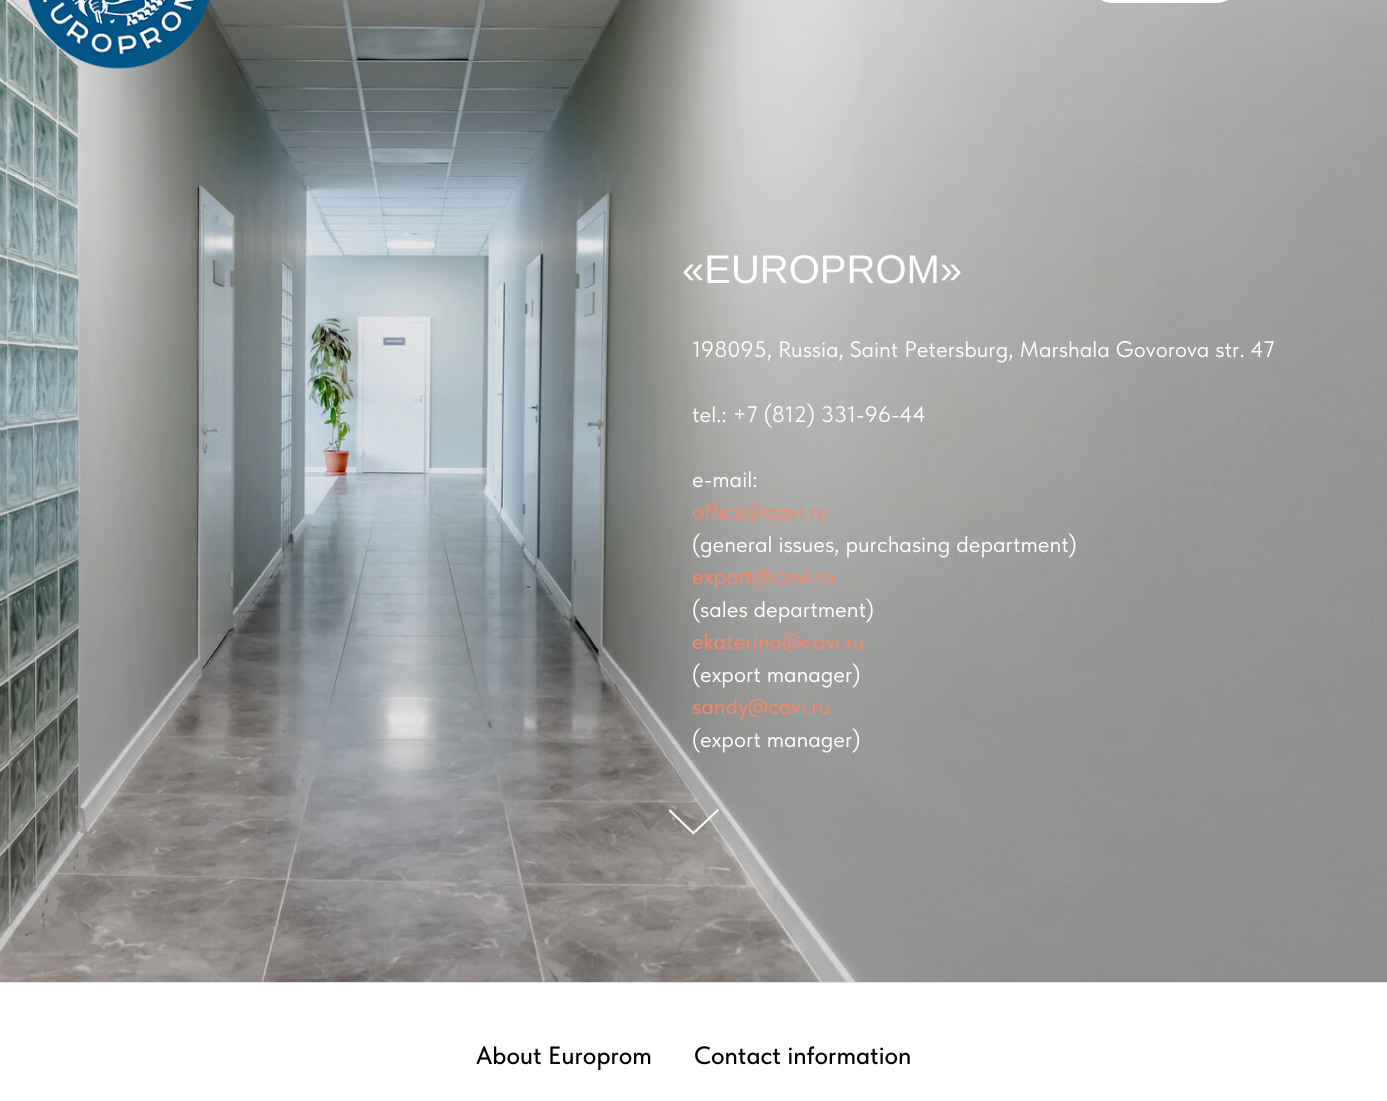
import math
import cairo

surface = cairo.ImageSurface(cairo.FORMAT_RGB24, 1387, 1101)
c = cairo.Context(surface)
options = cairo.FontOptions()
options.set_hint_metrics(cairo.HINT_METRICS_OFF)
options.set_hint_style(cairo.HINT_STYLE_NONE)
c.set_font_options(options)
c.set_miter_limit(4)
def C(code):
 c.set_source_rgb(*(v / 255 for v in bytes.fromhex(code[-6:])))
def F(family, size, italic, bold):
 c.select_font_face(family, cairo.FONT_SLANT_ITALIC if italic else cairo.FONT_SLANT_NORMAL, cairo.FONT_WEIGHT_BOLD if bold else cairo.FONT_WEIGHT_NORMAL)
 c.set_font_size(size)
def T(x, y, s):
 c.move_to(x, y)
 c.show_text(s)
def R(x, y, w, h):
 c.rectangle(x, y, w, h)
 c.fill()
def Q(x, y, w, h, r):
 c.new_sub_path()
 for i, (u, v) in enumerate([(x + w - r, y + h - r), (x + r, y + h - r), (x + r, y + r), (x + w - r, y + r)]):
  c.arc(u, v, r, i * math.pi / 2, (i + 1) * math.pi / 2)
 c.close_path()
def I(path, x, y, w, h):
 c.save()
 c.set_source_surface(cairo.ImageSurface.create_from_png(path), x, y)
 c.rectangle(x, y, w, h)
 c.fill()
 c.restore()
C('ffffff')
c.paint()
C('e6e6e6')
R(0,982,1387,1)
I('2.png',0,0,1387,983)
C('ffffff')
Q(1088,-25,153,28,25)
c.fill()
I('1.png',28,0,182,69)
F('Liberation Sans',40,0,0)
T(682,283,'«EUROPROM»')
F('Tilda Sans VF',22.5,0,0)
T(692,357,'198095, Russia, Saint Petersburg, Marshala Govorova str. 47')
T(692,422,'tel.: +7 (812) 331-96-44')
T(692,487,'e-mail:')
C('ff8562')
T(692,519,'office@cavi.ru')
C('ffffff')
T(692,552,'(general issues, purchasing department)')
C('ff8562')
T(692,584,'export@cavi.ru')
C('ffffff')
T(692,617,'(sales department)')
C('ff8562')
T(692,649,'ekaterina@cavi.ru')
C('ffffff')
T(692,682,'(export manager)')
C('ff8562')
T(692,714,'sandy@cavi.ru')
C('ffffff')
T(692,747,'(export manager)')
I('3.png',668,808,51,27)
F('Tilda Sans VF Medium',25,0,0)
C('000000')
T(476,1064,'About Europrom')
T(694,1064,'Contact information')
surface.write_to_png('o.png')
